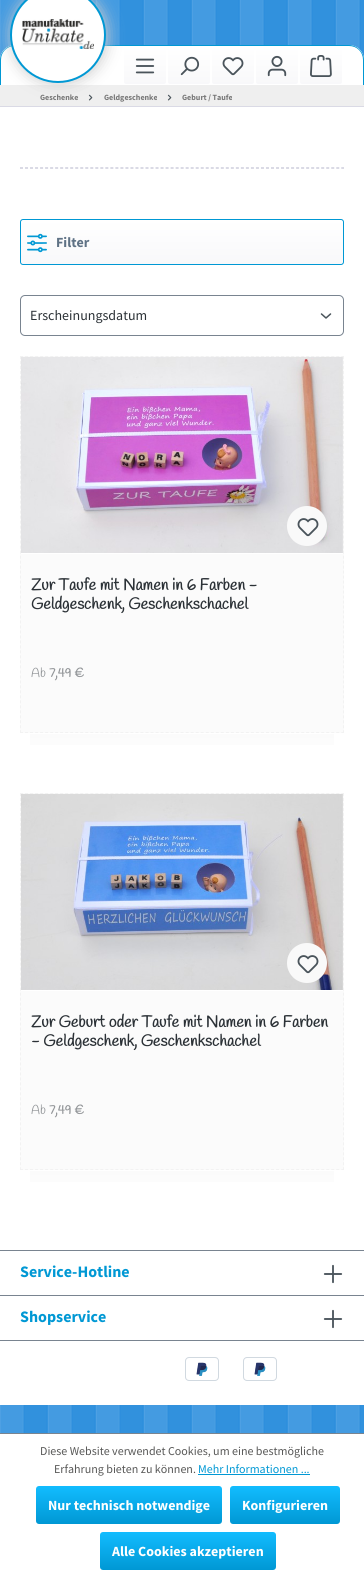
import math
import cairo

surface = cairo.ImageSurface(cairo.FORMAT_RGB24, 364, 1578)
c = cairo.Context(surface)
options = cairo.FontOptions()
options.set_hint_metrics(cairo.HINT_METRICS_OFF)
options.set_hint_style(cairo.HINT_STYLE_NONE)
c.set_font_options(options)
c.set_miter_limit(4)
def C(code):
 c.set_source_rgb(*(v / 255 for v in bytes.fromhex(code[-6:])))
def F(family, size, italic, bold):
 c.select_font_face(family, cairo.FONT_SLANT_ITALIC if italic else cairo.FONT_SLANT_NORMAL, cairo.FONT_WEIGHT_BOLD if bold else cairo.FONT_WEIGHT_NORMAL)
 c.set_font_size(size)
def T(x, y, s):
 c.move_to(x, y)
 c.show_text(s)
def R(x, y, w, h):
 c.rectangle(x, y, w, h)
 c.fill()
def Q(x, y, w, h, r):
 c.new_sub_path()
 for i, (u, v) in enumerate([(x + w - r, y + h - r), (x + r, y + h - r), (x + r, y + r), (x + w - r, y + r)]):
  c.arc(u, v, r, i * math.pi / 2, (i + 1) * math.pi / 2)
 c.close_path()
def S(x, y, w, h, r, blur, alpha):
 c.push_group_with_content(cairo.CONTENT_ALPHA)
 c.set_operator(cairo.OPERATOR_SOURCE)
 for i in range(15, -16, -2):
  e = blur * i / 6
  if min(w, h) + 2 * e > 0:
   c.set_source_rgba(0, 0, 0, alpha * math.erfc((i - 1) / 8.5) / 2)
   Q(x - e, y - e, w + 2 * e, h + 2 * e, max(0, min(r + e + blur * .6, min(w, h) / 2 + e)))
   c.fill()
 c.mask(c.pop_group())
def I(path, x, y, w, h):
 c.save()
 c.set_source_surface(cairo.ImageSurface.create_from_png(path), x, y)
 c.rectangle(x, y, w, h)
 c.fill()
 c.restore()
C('ffffff')
c.paint()
I('1.png',0,0,364,1433)
C('ffffff')
c.new_path()
c.move_to(15,45)
c.line_to(349,45)
c.curve_to(357.5,45,364,51.5,364,60)
c.line_to(364,85)
c.line_to(0,85)
c.line_to(0,60)
c.curve_to(0,51.5,6.5,45,15,45)
c.close_path()
c.fill()
C('0098d4')
c.set_fill_rule(cairo.FILL_RULE_EVEN_ODD)
c.new_path()
c.move_to(15,45)
c.line_to(349,45)
c.curve_to(357,45,364,52,364,60)
c.line_to(364,85)
c.line_to(0,85)
c.line_to(0,60)
c.curve_to(0,52,7,45,15,45)
c.close_path()
c.move_to(15,46)
c.line_to(349,46)
c.curve_to(357,46,363,52,363,60)
c.line_to(363,85)
c.line_to(1,85)
c.line_to(1,60)
c.curve_to(1,52,7,46,15,46)
c.close_path()
c.fill()
gradient = cairo.LinearGradient(145,47,145,84)
gradient.add_color_stop_rgba(0,1,1,1,1)
gradient.add_color_stop_rgba(1,0.973,0.973,0.98,1)
c.set_source(gradient)
Q(124,47,42,37,2)
c.fill()
C('efefef')
R(0,85,364,21)
C('dadae5')
R(0,106,364,1)
I('8.png',88,94,5,7)
C('ffffff')
R(0,107,364,1143)
C('cdcdcd')
S(11,-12,96,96,48,7.5,1)
C('ffffff')
c.arc(58,35,47,0,2 * math.pi)
c.fill_preserve()
C('0098d4')
c.stroke()
I('2.png',22,19,72,30)
I('3.png',135,58,20,16)
gradient = cairo.LinearGradient(189,47,189,84)
gradient.add_color_stop_rgba(0,1,1,1,1)
gradient.add_color_stop_rgba(1,0.973,0.973,0.98,1)
c.set_source(gradient)
Q(168,47,42,37,2)
c.fill()
I('4.png',180,56,20,20)
gradient = cairo.LinearGradient(233,47,233,84)
gradient.add_color_stop_rgba(0,1,1,1,1)
gradient.add_color_stop_rgba(1,0.973,0.973,0.98,1)
c.set_source(gradient)
Q(212,47,42,37,2)
c.fill()
I('5.png',222,57,22,19)
gradient = cairo.LinearGradient(277,47,277,84)
gradient.add_color_stop_rgba(0,1,1,1,1)
gradient.add_color_stop_rgba(1,0.973,0.973,0.98,1)
c.set_source(gradient)
Q(256,47,42,37,2)
c.fill()
I('6.png',267,55,20,22)
gradient = cairo.LinearGradient(321,47,321,84)
gradient.add_color_stop_rgba(0,1,1,1,1)
gradient.add_color_stop_rgba(1,0.973,0.973,0.98,1)
c.set_source(gradient)
Q(300,47,42,37,2)
c.fill()
I('7.png',310,55,22,22)
F('Source Sans Pro',8,0,1)
C('787878')
T(40,100,'Geschenke')
T(104,100,'Geldgeschenke')
I('8.png',167,94,5,7)
T(182,100,'Geburt / Taufe')
c.new_path()
c.move_to(20,167.5)
c.line_to(344,167.5)
C('dadae5')
c.set_line_width(1)
c.set_dash([3,2.02])
c.stroke()
R(343,167,1,2)
c.new_path()
c.move_to(20,168.5)
c.line_to(344,168.5)
c.stroke()
gradient = cairo.LinearGradient(182,220,182,264)
gradient.add_color_stop_rgba(0,1,1,1,1)
gradient.add_color_stop_rgba(1,0.973,0.973,0.98,1)
c.set_source(gradient)
Q(21,220,322,44,2)
c.fill()
Q(20.5,219.5,323,45,2.5)
C('0098d4')
c.set_dash([])
c.stroke()
I('9.png',27,233,20,20)
F('Source Sans Pro',14,0,1)
C('5f7285')
T(56,247,'Filter')
c.new_path()
c.move_to(321.5,314)
c.line_to(326,318)
c.line_to(330.5,314)
C('4a545b')
c.set_line_width(1.5)
c.set_line_cap(cairo.LINE_CAP_ROUND)
c.set_line_join(cairo.LINE_JOIN_ROUND)
c.stroke()
Q(20.5,295.5,323,40,4.5)
C('798490')
c.set_line_width(1)
c.set_line_cap(cairo.LINE_CAP_BUTT)
c.set_line_join(cairo.LINE_JOIN_MITER)
c.stroke()
F('Source Sans Pro',14,0,0)
C('2b3136')
T(30,320,'Erscheinungsdatum')
C('fbfbfb')
R(20,356,324,377)
c.new_path()
c.move_to(20,356.5)
c.line_to(344,356.5)
C('f2f2f2')
c.set_dash([3,2.02])
c.stroke()
c.new_path()
c.move_to(343.5,356)
c.line_to(343.5,733)
c.set_dash([3,1.99])
c.stroke()
c.new_path()
c.move_to(20,732.5)
c.line_to(344,732.5)
c.set_dash([3,2.02])
c.stroke()
c.new_path()
c.move_to(20.5,356)
c.line_to(20.5,733)
c.set_dash([3,1.99])
c.stroke()
C('ffffff')
R(21,553,322,1)
I('10.png',21,357,322,196)
C('f9f9f9')
c.arc(307,526,20,0,2 * math.pi)
c.fill()
I('11.png',297,518,22,19)
F('Handlee',16,0,1)
C('2b3136')
T(31,590,'Zur Taufe mit Namen in 6 Farben -')
T(31,609,'Geldgeschenk, Geschenkschachel')
F('Handlee',13,0,0)
C('939699')
T(31,677,'Ab')
F('Handlee',13,0,1)
T(49,677,'7,49 €')
gradient = cairo.LinearGradient(182,734,182,764)
gradient.add_color_stop_rgba(0,0.984,0.984,0.984,1)
gradient.add_color_stop_rgba(1,1,1,1,1)
c.set_source(gradient)
R(30,734,304,11)
C('fbfbfb')
R(20,793,324,377)
c.new_path()
c.move_to(20,793.5)
c.line_to(344,793.5)
C('f2f2f2')
c.set_dash([3,2.02])
c.stroke()
c.new_path()
c.move_to(343.5,793)
c.line_to(343.5,1170)
c.set_dash([3,1.99])
c.stroke()
c.new_path()
c.move_to(20,1169.5)
c.line_to(344,1169.5)
c.set_dash([3,2.02])
c.stroke()
c.new_path()
c.move_to(20.5,793)
c.line_to(20.5,1170)
c.set_dash([3,1.99])
c.stroke()
C('ffffff')
R(21,990,322,1)
I('12.png',21,794,322,196)
C('f9f9f9')
c.arc(307,963,20,0,2 * math.pi)
c.fill()
I('11.png',297,955,22,19)
F('Handlee',16,0,1)
C('2b3136')
T(31,1027,'Zur Geburt oder Taufe mit Namen in 6 Farben')
T(31,1046,'- Geldgeschenk, Geschenkschachel')
F('Handlee',13,0,0)
C('939699')
T(31,1114,'Ab')
F('Handlee',13,0,1)
T(49,1114,'7,49 €')
gradient = cairo.LinearGradient(182,1171,182,1201)
gradient.add_color_stop_rgba(0,0.984,0.984,0.984,1)
gradient.add_color_stop_rgba(1,1,1,1,1)
c.set_source(gradient)
R(30,1171,304,11)
C('798490')
R(0,1250,364,1)
C('ffffff')
R(0,1251,364,154)
C('798490')
R(0,1295,364,1)
F('Source Sans Pro',16,0,1)
C('0098d4')
T(20,1277,'Service-Hotline')
I('13.png',323,1264,20,20)
C('798490')
R(0,1340,364,1)
C('0098d4')
T(20,1322,'Shopservice')
I('13.png',323,1309,20,20)
I('14.png',185,1357,34,24)
I('14.png',243,1357,34,24)
C('798490')
R(0,1433,364,1)
F('Source Sans Pro',12,0,0)
C('575756')
T(40,1455,'Diese Website verwendet Cookies, um eine bestmögliche')
T(54,1473,'Erfahrung bieten zu können.')
C('0098d4')
T(198,1473,'Mehr Informationen ...')
R(198,1474,112,1)
gradient = cairo.LinearGradient(129,1486,129,1524)
gradient.add_color_stop_rgba(0,0.071,0.737,1,1)
gradient.add_color_stop_rgba(1,0,0.596,0.831,1)
c.set_source(gradient)
Q(36,1486,186,38,3)
c.fill()
F('Source Sans Pro',14,0,1)
C('ffffff')
T(48,1510,'Nur technisch notwendige')
gradient = cairo.LinearGradient(285,1486,285,1524)
gradient.add_color_stop_rgba(0,0.071,0.737,1,1)
gradient.add_color_stop_rgba(1,0,0.596,0.831,1)
c.set_source(gradient)
Q(230,1486,110,38,3)
c.fill()
C('ffffff')
T(242,1510,'Konfigurieren')
gradient = cairo.LinearGradient(188,1532,188,1570)
gradient.add_color_stop_rgba(0,0.071,0.737,1,1)
gradient.add_color_stop_rgba(1,0,0.596,0.831,1)
c.set_source(gradient)
Q(100,1532,176,38,3)
c.fill()
C('ffffff')
T(112,1556,'Alle Cookies akzeptieren')
surface.write_to_png('o.png')
